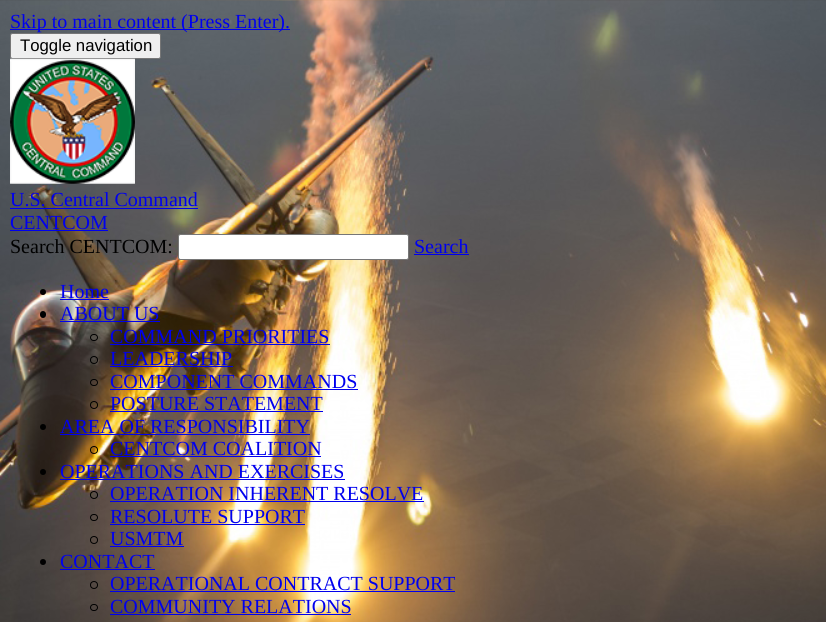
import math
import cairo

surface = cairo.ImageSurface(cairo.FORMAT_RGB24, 826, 622)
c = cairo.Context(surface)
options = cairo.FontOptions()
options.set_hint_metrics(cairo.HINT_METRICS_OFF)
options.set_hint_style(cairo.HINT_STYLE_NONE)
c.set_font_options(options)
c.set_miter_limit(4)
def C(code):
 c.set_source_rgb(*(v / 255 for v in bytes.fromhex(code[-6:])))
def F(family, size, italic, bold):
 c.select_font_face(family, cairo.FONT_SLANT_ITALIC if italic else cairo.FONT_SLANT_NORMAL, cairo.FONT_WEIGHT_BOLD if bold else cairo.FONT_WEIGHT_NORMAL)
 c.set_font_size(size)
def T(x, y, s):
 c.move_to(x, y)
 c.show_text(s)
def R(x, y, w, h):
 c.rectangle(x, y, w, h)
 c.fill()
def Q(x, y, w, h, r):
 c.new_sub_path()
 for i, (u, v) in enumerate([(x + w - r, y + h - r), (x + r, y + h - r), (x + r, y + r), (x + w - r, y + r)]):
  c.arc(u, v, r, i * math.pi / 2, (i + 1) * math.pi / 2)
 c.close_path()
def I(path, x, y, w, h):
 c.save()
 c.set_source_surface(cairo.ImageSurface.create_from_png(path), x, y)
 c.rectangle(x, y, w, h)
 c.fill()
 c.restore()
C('ffffff')
c.paint()
I('1.png',0,0,826,622)
C('0000ee')
R(10,29,280,1)
F('Liberation Serif',20,0,0)
T(10,28,'Skip to main content (Press Enter).')
C('efefef')
Q(10.5,33.5,150,25,2)
c.fill_preserve()
C('767676')
c.set_line_width(1)
c.stroke()
F('Liberation Sans',16.75,0,0)
C('000000')
T(20,51,'Toggle navigation')
I('2.png',10,58,125,126)
F('Liberation Serif',20,0,0)
C('0000ee')
T(10,206,'U.S. Central Command')
R(10,208,188,1)
T(10,229,'CENTCOM')
R(10,230,98,1)
C('000000')
T(10,253,'Search CENTCOM:')
C('ffffff')
Q(178.5,234.5,230,25,2)
c.fill_preserve()
C('767676')
c.stroke()
C('0000ee')
T(414,253,'Search')
R(414,254,55,1)
C('000000')
c.new_path()
c.arc(43,292,3,0,2 * math.pi)
c.fill()
C('0000ee')
T(60,298,'Home')
R(60,299,49,1)
C('000000')
Q(40,311,6,7,3)
c.fill()
C('0000ee')
T(60,320,'ABOUT US')
R(60,321,100,1)
Q(90.5,334.5,7,6,3)
C('000000')
c.stroke()
C('0000ee')
T(110,343,'COMMAND PRIORITIES')
R(110,344,220,1)
c.new_path()
c.arc(94,360,3.5,0,2 * math.pi)
C('000000')
c.stroke()
C('0000ee')
T(110,365,'LEADERSHIP')
R(110,366,123,1)
Q(90.5,379.5,7,6,3)
C('000000')
c.stroke()
C('0000ee')
T(110,388,'COMPONENT COMMANDS')
R(110,389,248,1)
c.new_path()
c.arc(94,405,3.5,0,2 * math.pi)
C('000000')
c.stroke()
C('0000ee')
T(110,410,'POSTURE STATEMENT')
R(110,411,213,1)
C('000000')
c.new_path()
c.arc(43,427,3,0,2 * math.pi)
c.fill()
C('0000ee')
T(60,433,'AREA OF RESPONSIBILITY')
R(60,434,250,1)
c.new_path()
c.arc(94,450,3.5,0,2 * math.pi)
C('000000')
c.stroke()
C('0000ee')
T(110,455,'CENTCOM COALITION')
R(110,456,211,1)
C('000000')
c.new_path()
c.arc(43,472,3,0,2 * math.pi)
c.fill()
C('0000ee')
T(60,478,'OPERATIONS AND EXERCISES')
R(60,479,285,1)
c.new_path()
c.arc(94,495,3.5,0,2 * math.pi)
C('000000')
c.stroke()
C('0000ee')
T(110,500,'OPERATION INHERENT RESOLVE')
R(110,501,314,1)
Q(90.5,514.5,7,6,3)
C('000000')
c.stroke()
C('0000ee')
T(110,523,'RESOLUTE SUPPORT')
R(110,524,195,1)
c.new_path()
c.arc(94,540,3.5,0,2 * math.pi)
C('000000')
c.stroke()
C('0000ee')
T(110,545,'USMTM')
R(110,546,74,1)
C('000000')
c.new_path()
c.arc(43,562,3,0,2 * math.pi)
c.fill()
C('0000ee')
T(60,568,'CONTACT')
R(60,569,95,1)
c.new_path()
c.arc(94,585,3.5,0,2 * math.pi)
C('000000')
c.stroke()
C('0000ee')
T(110,590,'OPERATIONAL CONTRACT SUPPORT')
R(110,591,345,1)
Q(90.5,604.5,7,6,3)
C('000000')
c.stroke()
C('0000ee')
T(110,613,'COMMUNITY RELATIONS')
R(110,614,241,1)
surface.write_to_png('o.png')
